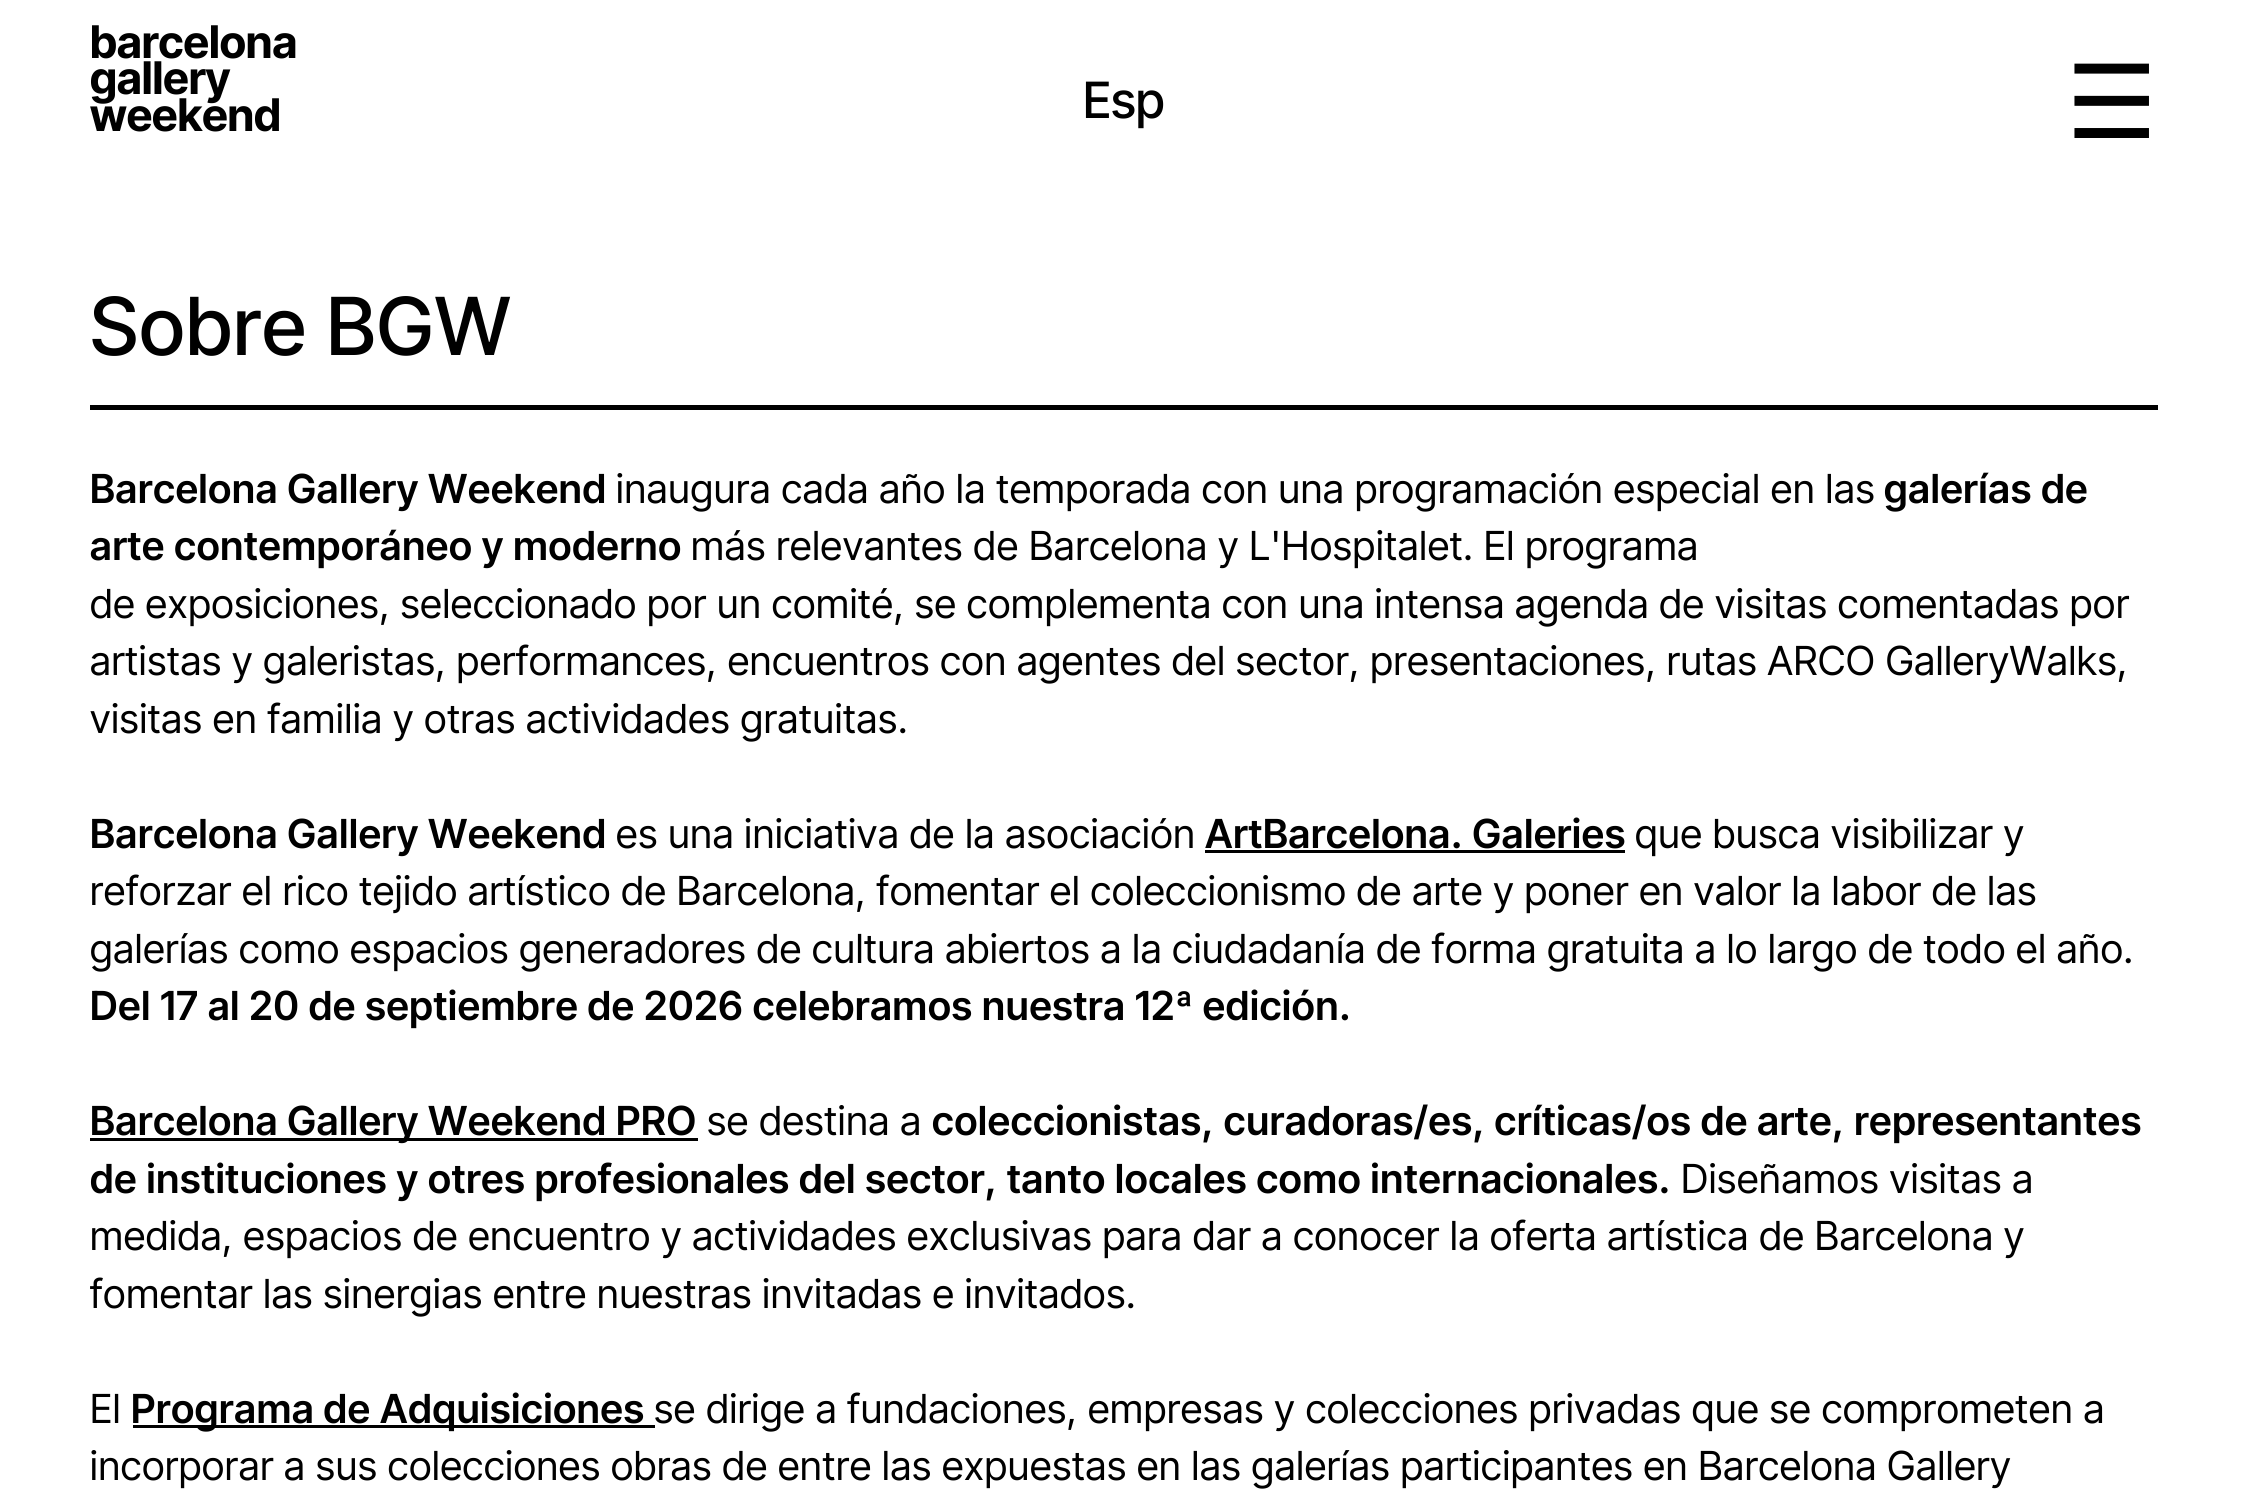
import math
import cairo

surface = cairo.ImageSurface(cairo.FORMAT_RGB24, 2246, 1504)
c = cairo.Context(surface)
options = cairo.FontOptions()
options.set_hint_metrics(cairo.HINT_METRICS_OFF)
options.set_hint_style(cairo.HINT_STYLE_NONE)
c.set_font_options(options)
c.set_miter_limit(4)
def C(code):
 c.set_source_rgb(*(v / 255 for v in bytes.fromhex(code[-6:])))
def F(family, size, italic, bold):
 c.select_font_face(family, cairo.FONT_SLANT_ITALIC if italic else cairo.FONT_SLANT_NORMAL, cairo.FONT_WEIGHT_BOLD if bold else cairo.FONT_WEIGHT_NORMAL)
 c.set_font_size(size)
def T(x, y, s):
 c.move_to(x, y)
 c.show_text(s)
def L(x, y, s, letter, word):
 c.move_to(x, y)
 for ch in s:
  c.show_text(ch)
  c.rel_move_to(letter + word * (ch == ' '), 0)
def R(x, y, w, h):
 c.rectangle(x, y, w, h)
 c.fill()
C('ffffff')
c.paint()
F('Inter Tight',45,0,1)
C('000000')
T(90,58,'barcelona')
T(90,94,'gallery')
T(90,131,'weekend')
F('Inter Tight Medium',50,0,0)
T(1083,118,'Esp')
F('DejaVu Sans',102,0,0)
T(2066,138,'☰')
R(90,405,2068,5)
F('Inter Tight Medium',80,0,0)
L(90,355,'Sobre BGW',1.5,0)
F('Inter Tight SemiBold',40,0,0)
L(90,503,'Barcelona Gallery Weekend',.8,0)
F('Inter Tight',40,0,0)
L(616,503,'inaugura cada año la temporada con una programación especial en las',.8,0)
F('Inter Tight SemiBold',40,0,0)
L(1884,503,'galerías de',.8,0)
L(90,560,'arte contemporáneo y moderno',.8,0)
F('Inter Tight',40,0,0)
L(691,560,'más relevantes de Barcelona y L\'Hospitalet. El programa',.8,0)
L(90,618,'de exposiciones, seleccionado por un comité, se complementa con una intensa agenda de visitas comentadas por',.8,0)
L(90,675,'artistas y galeristas, performances, encuentros con agentes del sector, presentaciones, rutas ARCO GalleryWalks,',.8,0)
L(90,733,'visitas en familia y otras actividades gratuitas.',.8,0)
F('Inter Tight SemiBold',40,0,0)
L(90,848,'Barcelona Gallery Weekend',.8,0)
F('Inter Tight',40,0,0)
L(616,848,'es una iniciativa de la asociación',.8,0)
F('Inter Tight SemiBold',40,0,0)
L(1205,848,'ArtBarcelona. Galeries',.8,0)
R(1205,850,420,3)
F('Inter Tight',40,0,0)
L(1635,848,'que busca visibilizar y',.8,0)
L(90,905,'reforzar el rico tejido artístico de Barcelona, fomentar el coleccionismo de arte y poner en valor la labor de las',.8,0)
L(90,963,'galerías como espacios generadores de cultura abiertos a la ciudadanía de forma gratuita a lo largo de todo el año.',.8,0)
F('Inter Tight SemiBold',40,0,0)
L(90,1020,'Del 17 al 20 de septiembre de 2026 celebramos nuestra 12ª edición.',.8,0)
R(90,1138,608,3)
L(90,1135,'Barcelona Gallery Weekend PRO',.8,0)
F('Inter Tight',40,0,0)
L(707,1135,'se destina a',.8,0)
F('Inter Tight SemiBold',40,0,0)
L(932,1135,'coleccionistas, curadoras/es, críticas/os de arte, representantes',.8,0)
L(90,1193,'de instituciones y otres profesionales del sector, tanto locales como internacionales.',.8,0)
F('Inter Tight',40,0,0)
L(1681,1193,'Diseñamos visitas a',.8,0)
L(90,1250,'medida, espacios de encuentro y actividades exclusivas para dar a conocer la oferta artística de Barcelona y',.8,0)
L(90,1308,'fomentar las sinergias entre nuestras invitadas e invitados.',.8,0)
L(90,1423,'El',.8,0)
R(133,1425,522,3)
F('Inter Tight SemiBold',40,0,0)
L(131,1423,'Programa de Adquisiciones',.8,0)
F('Inter Tight',40,0,0)
L(654,1423,'se dirige a fundaciones, empresas y colecciones privadas que se comprometen a',.8,0)
L(90,1480,'incorporar a sus colecciones obras de entre las expuestas en las galerías participantes en Barcelona Gallery',.8,0)
surface.write_to_png('o.png')
